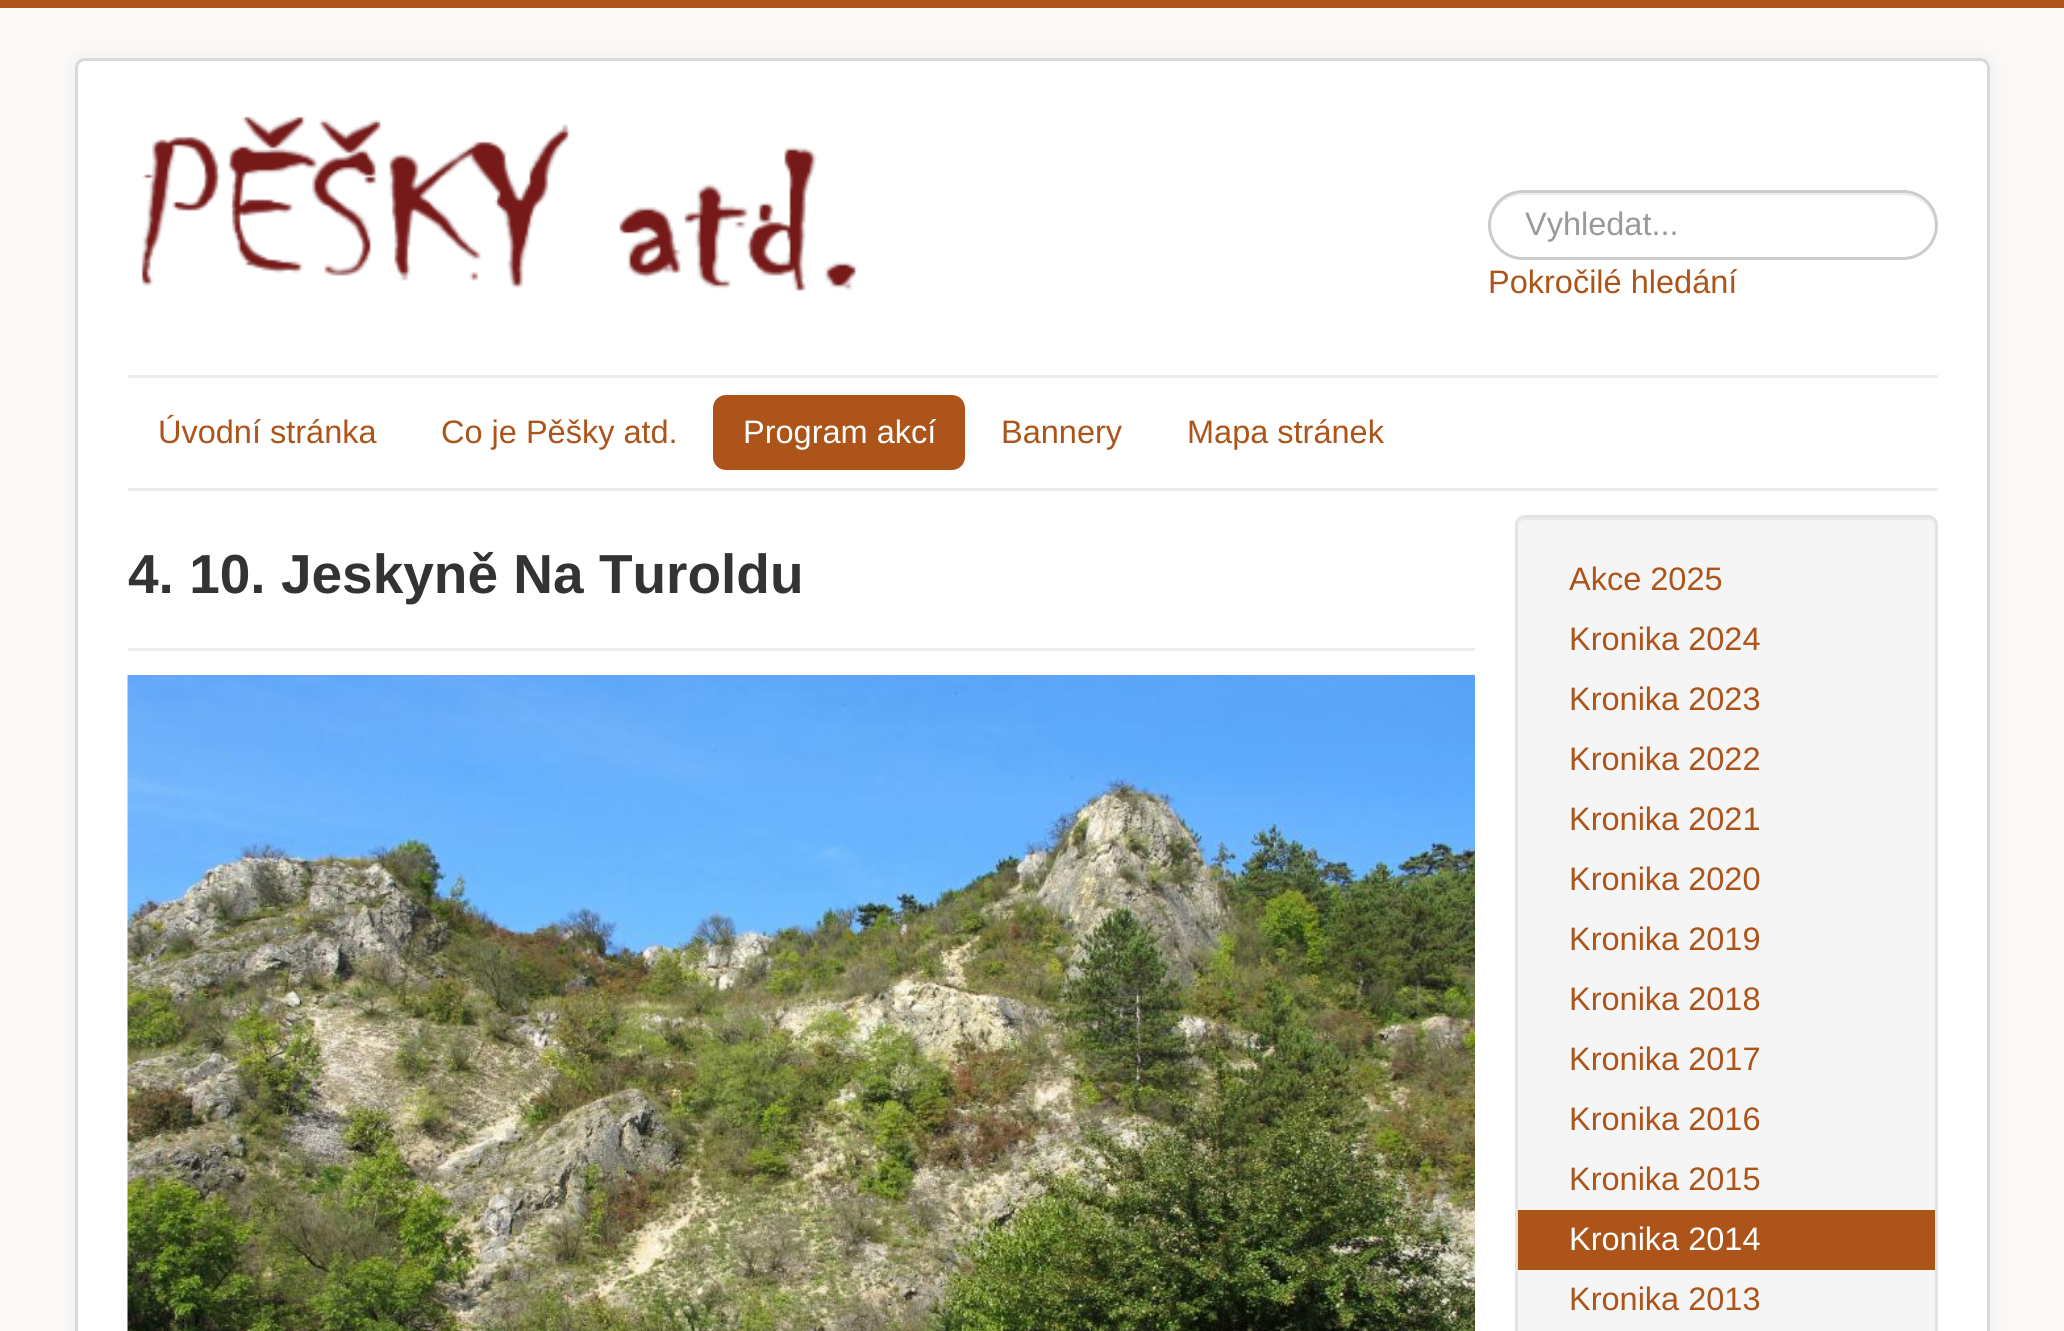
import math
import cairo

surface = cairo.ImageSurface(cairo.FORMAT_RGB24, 2064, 1331)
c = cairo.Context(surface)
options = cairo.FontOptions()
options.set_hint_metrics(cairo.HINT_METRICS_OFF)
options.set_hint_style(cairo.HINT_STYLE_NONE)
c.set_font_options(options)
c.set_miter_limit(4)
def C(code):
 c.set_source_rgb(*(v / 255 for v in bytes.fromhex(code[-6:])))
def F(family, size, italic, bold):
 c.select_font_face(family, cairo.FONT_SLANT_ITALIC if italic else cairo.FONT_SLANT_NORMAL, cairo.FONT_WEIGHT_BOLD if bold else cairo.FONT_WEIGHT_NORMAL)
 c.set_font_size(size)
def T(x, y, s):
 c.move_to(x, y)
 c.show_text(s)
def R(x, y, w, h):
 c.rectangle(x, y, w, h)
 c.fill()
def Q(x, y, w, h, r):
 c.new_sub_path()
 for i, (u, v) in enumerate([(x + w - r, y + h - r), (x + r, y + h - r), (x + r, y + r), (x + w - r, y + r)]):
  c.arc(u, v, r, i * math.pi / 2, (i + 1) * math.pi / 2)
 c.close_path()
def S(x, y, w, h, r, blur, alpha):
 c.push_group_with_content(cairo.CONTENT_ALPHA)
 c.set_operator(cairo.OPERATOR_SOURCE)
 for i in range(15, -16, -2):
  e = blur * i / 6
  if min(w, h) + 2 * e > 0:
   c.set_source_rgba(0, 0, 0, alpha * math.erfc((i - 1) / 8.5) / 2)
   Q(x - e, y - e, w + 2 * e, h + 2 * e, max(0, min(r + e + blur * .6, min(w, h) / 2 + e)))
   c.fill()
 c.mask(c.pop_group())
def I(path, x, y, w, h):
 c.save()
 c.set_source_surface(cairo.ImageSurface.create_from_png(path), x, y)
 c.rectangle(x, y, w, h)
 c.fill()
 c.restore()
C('faf9f7')
c.paint()
C('ac5419')
R(0,0,2064,8)
C('000000')
S(75,58,1915,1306,10,7.5,.05)
C('ffffff')
Q(75,58,1915,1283,10)
c.fill()
Q(76.5,59.5,1912,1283,8.5)
c.set_source_rgba(0,0,0,0.15)
c.set_line_width(3)
c.stroke()
I('1.png',141,116,717,175)
C('ececec')
c.new_path()
c.move_to(1522,195)
c.line_to(1902,195)
c.curve_to(1920,195,1934,209,1935,227)
c.line_to(1935,226)
c.curve_to(1935,208,1920,193,1902,193)
c.line_to(1522,193)
c.curve_to(1505,193,1490,208,1490,226)
c.line_to(1490,227)
c.curve_to(1491,209,1505,195,1522,195)
c.close_path()
c.fill()
Q(1489.5,191.5,447,67,33.5)
C('cccccc')
c.stroke()
F('Liberation Sans',32.5,0,0)
C('999999')
T(1525,235,'Vyhledat...')
C('ac5419')
T(1488,293,'Pokročilé hledání')
C('ececec')
R(128,375,1810,3)
R(128,488,1810,3)
C('ac5419')
T(158,443,'Úvodní stránka')
T(441,443,'Co je Pěšky atd.')
Q(713,395,252,75,13)
c.fill()
C('ffffff')
T(743,443,'Program akcí')
C('ac5419')
T(1001,443,'Bannery')
T(1187,443,'Mapa stránek')
C('eeeeee')
R(128,648,1347,3)
F('Liberation Sans',55,0,1)
C('333333')
T(128,593,'4. 10. Jeskyně Na Turoldu')
I('2.png',127,675,1348,656)
C('f5f5f5')
Q(1515,515,423,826,10)
c.fill()
C('e9e9e9')
c.new_path()
c.move_to(1525,520)
c.line_to(1928,520)
c.curve_to(1932,520,1935,523,1935,528)
c.line_to(1935,526)
c.curve_to(1935,522,1931,518,1927,518)
c.line_to(1526,518)
c.curve_to(1522,518,1518,522,1518,526)
c.line_to(1518,528)
c.curve_to(1518,523,1521,520,1525,520)
c.close_path()
c.fill()
Q(1516.5,516.5,420,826,8.5)
C('e3e3e3')
c.stroke()
F('Liberation Sans',32.5,0,0)
C('ac5419')
T(1569,590,'Akce 2025')
T(1569,650,'Kronika 2024')
T(1569,710,'Kronika 2023')
T(1569,770,'Kronika 2022')
T(1569,830,'Kronika 2021')
T(1569,890,'Kronika 2020')
T(1569,950,'Kronika 2019')
T(1569,1010,'Kronika 2018')
T(1569,1070,'Kronika 2017')
T(1569,1130,'Kronika 2016')
T(1569,1190,'Kronika 2015')
R(1518,1210,417,60)
C('ffffff')
T(1569,1250,'Kronika 2014')
C('ac5419')
T(1569,1310,'Kronika 2013')
surface.write_to_png('o.png')
